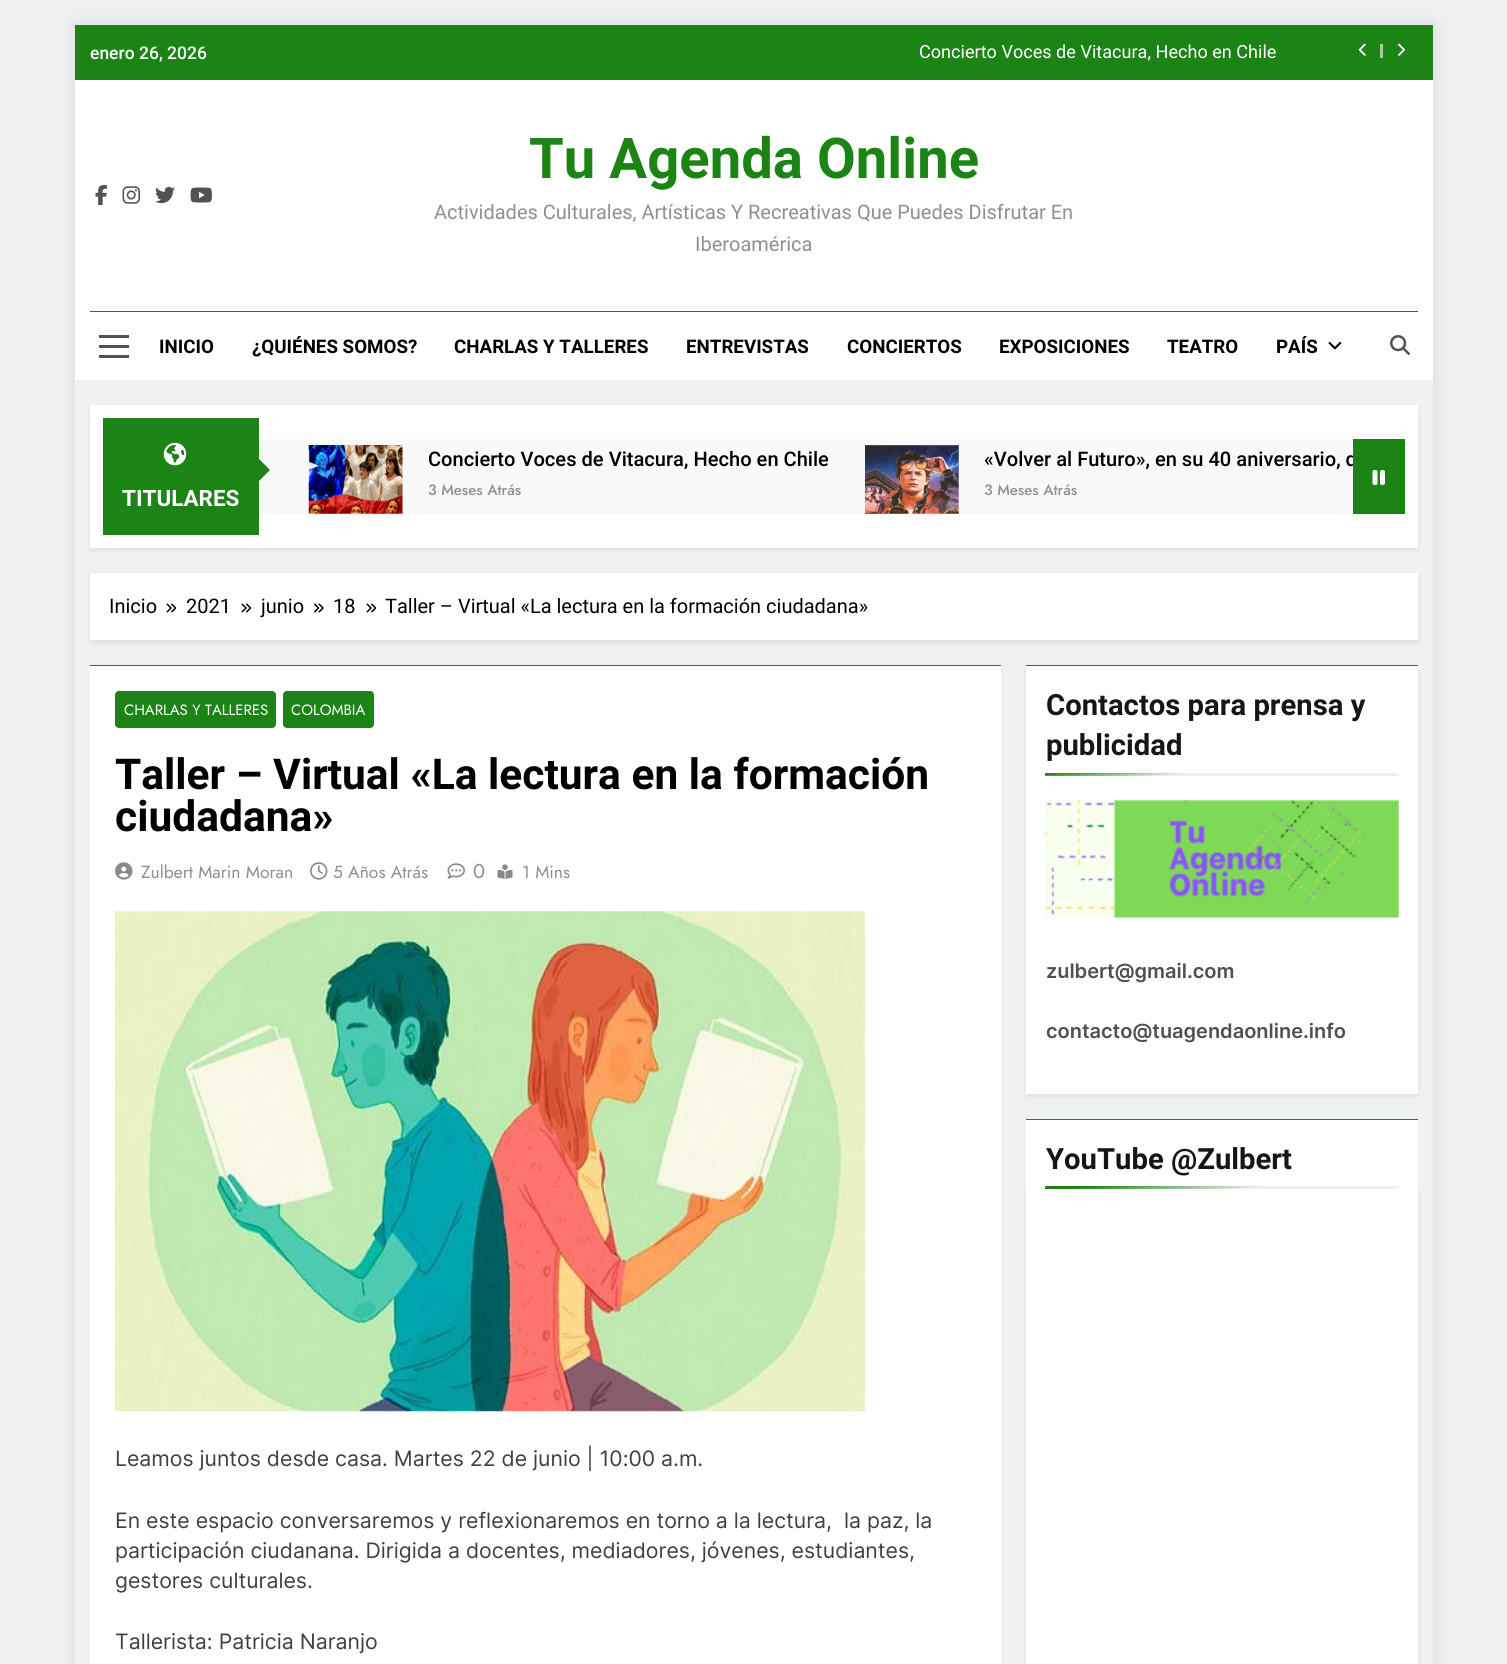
import math
import cairo

surface = cairo.ImageSurface(cairo.FORMAT_RGB24, 1507, 1664)
c = cairo.Context(surface)
options = cairo.FontOptions()
options.set_hint_metrics(cairo.HINT_METRICS_OFF)
options.set_hint_style(cairo.HINT_STYLE_NONE)
c.set_font_options(options)
c.set_miter_limit(4)
def C(code):
 c.set_source_rgb(*(v / 255 for v in bytes.fromhex(code[-6:])))
def F(family, size, italic, bold):
 c.select_font_face(family, cairo.FONT_SLANT_ITALIC if italic else cairo.FONT_SLANT_NORMAL, cairo.FONT_WEIGHT_BOLD if bold else cairo.FONT_WEIGHT_NORMAL)
 c.set_font_size(size)
def T(x, y, s):
 c.move_to(x, y)
 c.show_text(s)
def R(x, y, w, h):
 c.rectangle(x, y, w, h)
 c.fill()
def Q(x, y, w, h, r):
 c.new_sub_path()
 for i, (u, v) in enumerate([(x + w - r, y + h - r), (x + r, y + h - r), (x + r, y + r), (x + w - r, y + r)]):
  c.arc(u, v, r, i * math.pi / 2, (i + 1) * math.pi / 2)
 c.close_path()
def S(x, y, w, h, r, blur, alpha):
 c.push_group_with_content(cairo.CONTENT_ALPHA)
 c.set_operator(cairo.OPERATOR_SOURCE)
 for i in range(15, -16, -2):
  e = blur * i / 6
  if min(w, h) + 2 * e > 0:
   c.set_source_rgba(0, 0, 0, alpha * math.erfc((i - 1) / 8.5) / 2)
   Q(x - e, y - e, w + 2 * e, h + 2 * e, max(0, min(r + e + blur * .6, min(w, h) / 2 + e)))
   c.fill()
 c.mask(c.pop_group())
def I(path, x, y, w, h):
 c.save()
 c.set_source_surface(cairo.ImageSurface.create_from_png(path), x, y)
 c.rectangle(x, y, w, h)
 c.fill()
 c.restore()
C('f0f1f2')
c.paint()
c.save()
c.set_fill_rule(cairo.FILL_RULE_EVEN_ODD)
c.new_path()
c.move_to(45,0)
c.line_to(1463,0)
c.line_to(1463,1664)
c.line_to(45,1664)
c.close_path()
c.move_to(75,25)
c.line_to(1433,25)
c.line_to(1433,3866)
c.line_to(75,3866)
c.close_path()
c.clip()
C('000000')
S(75,25,1358,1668,0,9.5,.1)
c.restore()
C('1b8415')
R(75,25,1358,55)
F('Roboto Medium',17.5,0,0)
C('ffffff')
T(90,59,'enero 26, 2026')
F('Roboto',18.1,0,0)
T(919,58,'Concierto Voces de Vitacura, Hecho en Chile')
I('1.png',1358,43,8,13)
C('a4cea1')
R(1380,44,3,14)
I('2.png',1398,43,7,13)
C('ffffff')
R(75,80,1358,300)
I('3.png',95,185,12,20)
I('4.png',122,186,18,18)
I('5.png',155,186,20,18)
I('6.png',190,187,22,16)
F('Roboto',56.25,0,1)
C('1b8415')
T(529,178,'Tu Agenda Online')
F('Roboto',20,0,0)
C('8f8f8f')
T(434,219,'Actividades Culturales, Artísticas Y Recreativas Que Puedes Disfrutar En')
T(695,251,'Iberoamérica')
C('1b8415')
R(90,311,1328,1)
C('525252')
R(99,335,30,3)
R(99,345,30,3)
R(99,355,30,3)
F('Roboto',18.75,0,1)
C('000000')
T(159,353,'INICIO')
T(252,353,'¿QUIÉNES SOMOS?')
T(454,353,'CHARLAS Y TALLERES')
T(686,353,'ENTREVISTAS')
T(847,353,'CONCIERTOS')
T(999,353,'EXPOSICIONES')
T(1167,353,'TEATRO')
T(1276,353,'PAÍS')
I('7.png',1328,342,14,8)
I('8.png',1390,335,20,20)
C('000000')
S(90,408,1328,142,0,2.5,.08)
C('ffffff')
R(90,405,1328,143)
C('f9f9f9')
R(259,439,1094,75)
I('9.png',308,445,95,69)
F('Roboto Medium',20.1,0,0)
C('000000')
T(428,466,'Concierto Voces de Vitacura, Hecho en Chile')
F('Jost Medium',15,0,0)
C('8f8f8f')
T(428,495,'3 Meses Atrás')
I('10.png',865,445,94,69)
c.save()
c.rectangle(984,448,369,23)
c.clip()
F('Roboto Medium',20.1,0,0)
C('000000')
T(984,466,'«Volver al Futuro», en su 40 aniversario, q')
c.restore()
T(984,495,'3 Meses Atrás')
C('1b8415')
R(1353,439,52,75)
I('11.png',1372,470,13,15)
R(103,418,156,117)
I('12.png',163,442,24,24)
c.new_path()
c.move_to(257.5,482.5)
c.line_to(257.5,457.5)
c.line_to(270,470)
c.close_path()
c.fill()
F('Roboto',22.5,0,1)
C('ffffff')
T(122,506,'TITULARES')
C('000000')
S(90,575,1328,68,0,2.5,.08)
C('ffffff')
R(90,573,1328,67)
F('Roboto',20,0,0)
C('000000')
T(109,613,'Inicio')
I('13.png',166,603,11,10)
T(186,613,'2021')
I('13.png',241,603,11,10)
T(261,613,'junio')
I('14.png',314,603,10,10)
T(333,613,'18')
I('13.png',366,603,11,10)
T(385,613,'Taller – Virtual «La lectura en la formación ciudadana»')
C('ffffff')
R(90,666,911,998)
C('1b8415')
R(90,665,911,1)
Q(115,691,161,37,4)
c.fill()
F('Jost',14.9,0,0)
C('ffffff')
T(124,715,'CHARLAS Y TALLERES')
C('1b8415')
Q(283,691,91,37,4)
c.fill()
C('ffffff')
T(291,715,'COLOMBIA')
F('Roboto',42.5,0,1)
C('000000')
T(115,789,'Taller – Virtual «La lectura en la formación')
T(115,831,'ciudadana»')
I('15.png',115,862,18,18)
F('Jost',17.5,0,0)
C('8f8f8f')
T(141,878,'Zulbert Marin Moran')
I('16.png',310,862,18,18)
T(333,878,'5 Años Atrás')
I('17.png',447,863,18,16)
F('Jost',20,0,0)
T(473,878,'0')
I('18.png',497,864,16,16)
F('Jost',17.5,0,0)
T(522,878,'1 Mins')
I('19.png',115,911,750,501)
F('Inter',21.25,0,0)
C('404040')
T(115,1466,'Leamos juntos desde casa. Martes 22 de junio | 10:00 a.m.')
T(115,1528,'En este espacio conversaremos y reflexionaremos en torno a la lectura,  la paz, la')
T(115,1558,'participación ciudanana. Dirigida a docentes, mediadores, jóvenes, estudiantes,')
T(115,1588,'gestores culturales.')
T(115,1649,'Tallerista: Patricia Naranjo')
C('000000')
S(1026,669,392,427,0,2.5,.08)
C('ffffff')
R(1026,666,392,428)
C('1b8415')
R(1026,665,392,1)
C('f0f0f0')
R(1183,773,216,3)
F('Roboto',29.25,0,1)
C('161616')
T(1046,715,'Contactos para prensa y')
T(1046,755,'publicidad')
gradient = cairo.LinearGradient(1113,768,1114,780)
gradient.add_color_stop_rgba(0,0.106,0.518,0.082,1)
gradient.add_color_stop_rgba(1,0.941,0.941,0.941,1)
c.set_source(gradient)
R(1045,773,138,3)
I('20.png',1045,800,354,118)
F('Inter SemiBold',20,0,0)
C('505050')
T(1046,978,'zulbert@gmail.com')
T(1046,1038,'contacto@tuagendaonline.info')
C('000000')
S(1026,1191,392,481,0,2.5,.08)
C('ffffff')
R(1026,1120,392,544)
C('1b8415')
R(1026,1119,392,1)
C('f0f0f0')
R(1291,1186,108,3)
F('Roboto',29.25,0,1)
C('161616')
T(1046,1169,'YouTube @Zulbert')
gradient = cairo.LinearGradient(1167,1178,1169,1197)
gradient.add_color_stop_rgba(0,0.106,0.518,0.082,1)
gradient.add_color_stop_rgba(1,0.941,0.941,0.941,1)
c.set_source(gradient)
R(1045,1186,246,3)
surface.write_to_png('o.png')
